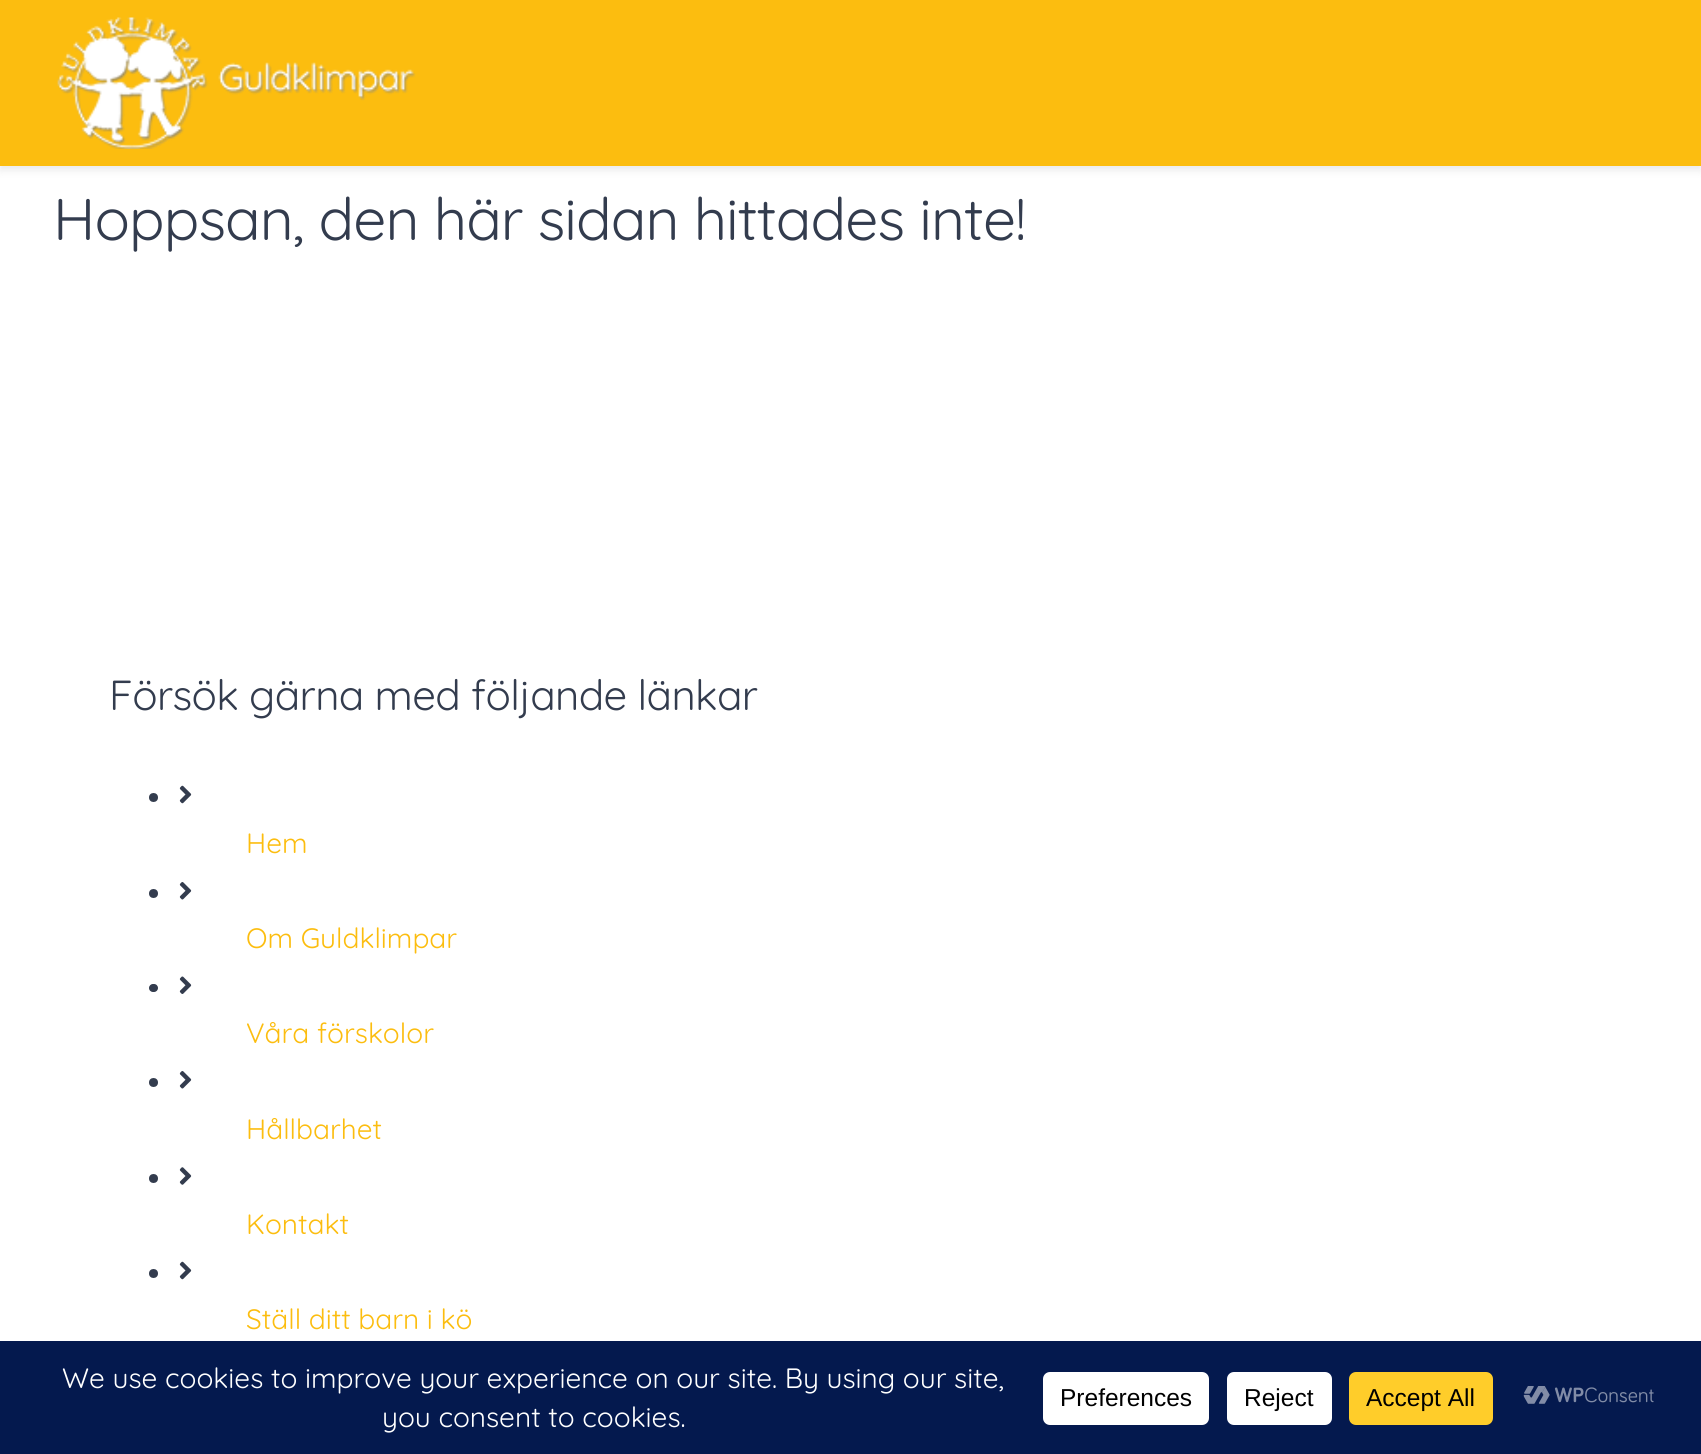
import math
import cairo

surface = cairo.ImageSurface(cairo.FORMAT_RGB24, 1701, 1454)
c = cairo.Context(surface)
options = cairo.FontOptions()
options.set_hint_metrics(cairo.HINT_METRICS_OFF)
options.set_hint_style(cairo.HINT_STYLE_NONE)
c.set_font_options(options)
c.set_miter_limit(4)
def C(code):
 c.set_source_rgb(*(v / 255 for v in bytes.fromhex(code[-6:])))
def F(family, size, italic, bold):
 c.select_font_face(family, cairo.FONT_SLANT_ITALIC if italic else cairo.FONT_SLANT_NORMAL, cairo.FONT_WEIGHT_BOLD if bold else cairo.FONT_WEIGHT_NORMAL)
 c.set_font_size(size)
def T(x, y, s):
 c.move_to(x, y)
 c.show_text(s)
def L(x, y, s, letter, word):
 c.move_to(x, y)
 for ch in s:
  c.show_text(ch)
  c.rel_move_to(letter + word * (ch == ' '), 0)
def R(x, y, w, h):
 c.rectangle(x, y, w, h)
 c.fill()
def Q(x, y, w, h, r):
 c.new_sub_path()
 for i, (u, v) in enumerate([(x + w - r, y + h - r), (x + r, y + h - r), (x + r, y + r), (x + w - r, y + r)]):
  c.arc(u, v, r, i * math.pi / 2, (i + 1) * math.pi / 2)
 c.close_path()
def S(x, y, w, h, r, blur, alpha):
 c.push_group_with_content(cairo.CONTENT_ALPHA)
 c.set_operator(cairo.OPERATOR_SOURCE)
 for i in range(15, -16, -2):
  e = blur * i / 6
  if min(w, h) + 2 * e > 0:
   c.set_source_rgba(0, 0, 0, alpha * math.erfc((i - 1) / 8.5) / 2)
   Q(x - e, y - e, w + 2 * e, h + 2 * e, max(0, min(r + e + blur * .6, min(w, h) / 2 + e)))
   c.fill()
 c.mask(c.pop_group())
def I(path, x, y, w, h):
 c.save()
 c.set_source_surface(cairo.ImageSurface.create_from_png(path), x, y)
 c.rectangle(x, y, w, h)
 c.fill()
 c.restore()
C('ffffff')
c.paint()
C('212121')
S(0,4,1701,166,0,4.5,.1)
C('fcbd0f')
R(0,0,1701,166)
I('1.png',57,17,359,132)
F('Quicksand',58.75,0,0)
C('333c4e')
L(53,240,'Hoppsan, den här sidan hittades inte!',-.9,0)
F('Quicksand',42,0,0)
L(109,710,'Försök gärna med följande länkar',-.6,0)
c.new_path()
c.arc(153.5,797.5,4.5,0,2 * math.pi)
c.fill()
I('2.png',179,785,13,19)
F('Quicksand',28,0,0)
C('fcbd0f')
T(246,853,'Hem')
C('333c4e')
c.new_path()
c.arc(153.5,893.5,4.5,0,2 * math.pi)
c.fill()
I('3.png',179,882,13,18)
C('fcbd0f')
T(246,948,'Om Guldklimpar')
C('333c4e')
Q(149,984,9,8,4)
c.fill()
I('4.png',179,976,13,18)
C('fcbd0f')
T(246,1043,'Våra förskolor')
C('333c4e')
c.new_path()
c.arc(153.5,1082.5,4.5,0,2 * math.pi)
c.fill()
I('3.png',179,1071,13,18)
C('fcbd0f')
T(246,1139,'Hållbarhet')
C('333c4e')
c.new_path()
c.arc(153.5,1178.5,4.5,0,2 * math.pi)
c.fill()
I('5.png',179,1167,13,18)
C('fcbd0f')
T(246,1234,'Kontakt')
C('333c4e')
c.new_path()
c.arc(153.5,1273.5,4.5,0,2 * math.pi)
c.fill()
I('2.png',179,1261,13,19)
C('fcbd0f')
T(246,1329,'Ställ ditt barn i kö')
C('04194e')
R(0,1341,1701,113)
C('ffffff')
T(62,1388,'We use cookies to improve your experience on our site. By using our site,')
T(382,1427,'you consent to cookies.')
Q(1043,1372,166,53,7)
c.fill()
F('Liberation Sans',24.5,0,0)
C('000000')
T(1060,1406,'Preferences')
C('ffffff')
Q(1227,1372,105,53,7)
c.fill()
C('000000')
T(1244,1406,'Reject')
C('ffcd2a')
Q(1349,1372,144,53,7)
c.fill()
C('000000')
T(1366,1406,'Accept All')
I('6.png',1523,1386,131,18)
surface.write_to_png('o.png')
